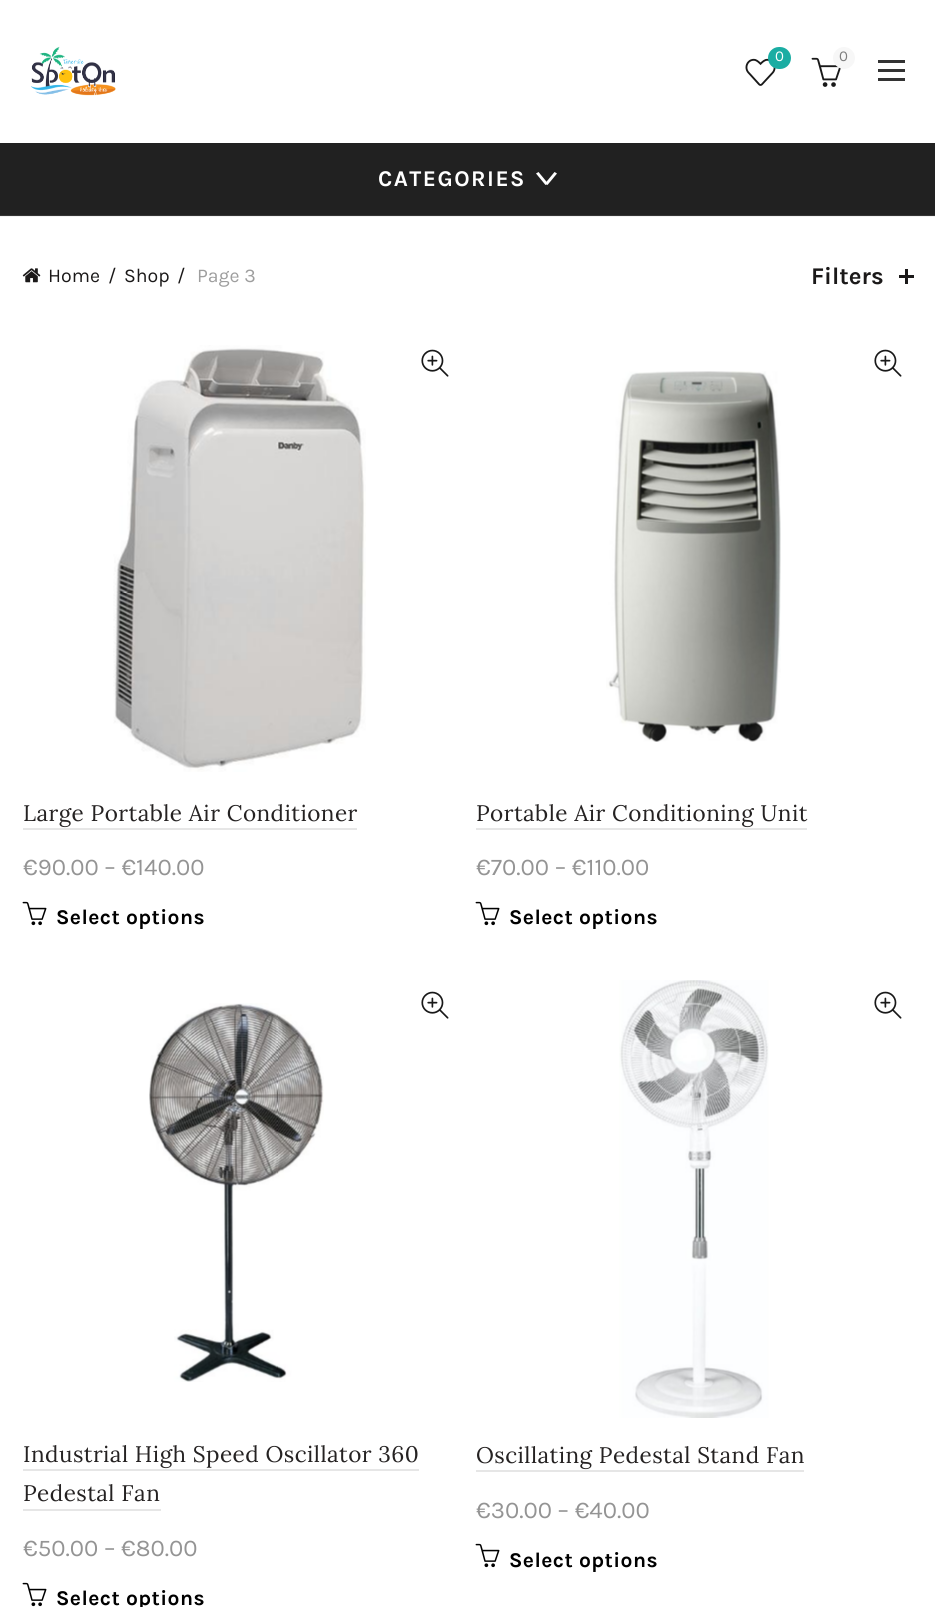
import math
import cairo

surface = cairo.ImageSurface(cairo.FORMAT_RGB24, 935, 1607)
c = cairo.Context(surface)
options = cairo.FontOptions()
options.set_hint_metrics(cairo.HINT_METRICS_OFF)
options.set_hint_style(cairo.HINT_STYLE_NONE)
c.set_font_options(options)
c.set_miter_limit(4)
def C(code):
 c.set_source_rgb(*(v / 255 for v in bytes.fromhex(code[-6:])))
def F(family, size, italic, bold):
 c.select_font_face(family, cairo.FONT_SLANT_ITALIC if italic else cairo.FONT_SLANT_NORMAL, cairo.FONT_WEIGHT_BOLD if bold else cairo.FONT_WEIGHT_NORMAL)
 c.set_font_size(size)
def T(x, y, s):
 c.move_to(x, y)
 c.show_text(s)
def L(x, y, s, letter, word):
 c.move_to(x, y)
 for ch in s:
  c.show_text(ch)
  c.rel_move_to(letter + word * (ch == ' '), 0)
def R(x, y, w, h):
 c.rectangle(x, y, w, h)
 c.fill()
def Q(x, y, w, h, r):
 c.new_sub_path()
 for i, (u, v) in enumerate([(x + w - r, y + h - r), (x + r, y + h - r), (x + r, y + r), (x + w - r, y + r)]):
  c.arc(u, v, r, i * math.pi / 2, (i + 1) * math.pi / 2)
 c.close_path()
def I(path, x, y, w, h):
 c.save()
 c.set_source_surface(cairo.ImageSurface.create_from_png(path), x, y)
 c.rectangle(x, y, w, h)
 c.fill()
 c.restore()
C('ffffff')
c.paint()
C('f2f2f2')
R(0,216,935,1)
I('1.png',30,46,86,50)
I('2.png',745,58,31,28)
C('1aada3')
Q(768,47,23,22,11)
c.fill()
F('Karla',15,0,0)
C('ffffff')
T(775,61,'0')
I('3.png',811,57,30,30)
C('f7f7f7')
c.arc(844,58,11,0,2 * math.pi)
c.fill()
C('7e7e7e')
T(839,61,'0')
C('333333')
R(878,69,27,3)
R(878,60,27,3)
R(878,78,27,3)
C('212121')
R(0,143,935,72)
C('353535')
R(0,215,935,1)
F('Karla',22.5,0,1)
C('ffffff')
L(378,186,'CATEGORIES',1.5,0)
c.new_path()
c.move_to(545,183.5)
c.line_to(554.5,172)
c.line_to(557,173.5)
c.line_to(547.5,185)
c.close_path()
c.fill()
c.new_path()
c.move_to(538.5,172)
c.line_to(548,183.5)
c.line_to(545.5,185)
c.line_to(536,173.5)
c.close_path()
c.fill()
I('4.png',22,268,19,15)
F('Karla',19.5,0,0)
C('1b1919')
T(48,282,'Home')
T(108,282,'/')
T(124,282,'Shop')
T(177,282,'/')
C('9e9e9e')
T(197,282,'Page 3')
F('Karla',24,0,1)
C('1b1919')
T(811,284,'Filters')
R(905,269,3,15)
R(899,275,15,3)
I('5.png',113,345,253,427)
I('6.png',421,349,28,28)
F('Lora',22.5,0,0)
C('252222')
L(23,821,'Large Portable Air Conditioner',.45,0)
C('e6e6e6')
R(23,828,334,2)
F('Karla',24,0,0)
C('949494')
T(23,875,'€90.00 – €140.00')
I('7.png',22,901,25,25)
F('Karla',21,0,1)
C('000000')
L(56,924,'Select options',.45,0)
I('6.png',874,349,28,28)
I('8.png',606,371,175,371)
F('Lora',22.5,0,0)
C('252222')
L(476,821,'Portable Air Conditioning Unit',.45,0)
C('e6e6e6')
R(476,828,331,2)
F('Karla',24,0,0)
C('949494')
T(476,875,'€70.00 – €110.00')
I('7.png',475,901,25,25)
F('Karla',21,0,1)
C('000000')
L(509,924,'Select options',.45,0)
I('9.png',149,1003,175,379)
I('6.png',421,991,28,28)
F('Lora',22.5,0,0)
C('252222')
L(23,1462,'Industrial High Speed Oscillator 360',.45,0)
C('e6e6e6')
R(23,1469,396,2)
C('252222')
L(23,1501,'Pedestal Fan',.45,0)
C('e6e6e6')
R(23,1509,138,2)
F('Karla',24,0,0)
C('949494')
T(23,1556,'€50.00 – €80.00')
I('7.png',22,1582,25,25)
F('Karla',21,0,1)
C('000000')
L(56,1605,'Select options',.45,0)
I('10.png',619,980,150,438)
I('6.png',874,991,28,28)
F('Lora',22.5,0,0)
C('252222')
L(476,1463,'Oscillating Pedestal Stand Fan',.45,0)
C('e6e6e6')
R(476,1470,328,2)
F('Karla',24,0,0)
C('949494')
T(476,1518,'€30.00 – €40.00')
I('7.png',475,1543,25,25)
F('Karla',21,0,1)
C('000000')
L(509,1567,'Select options',.45,0)
surface.write_to_png('o.png')
